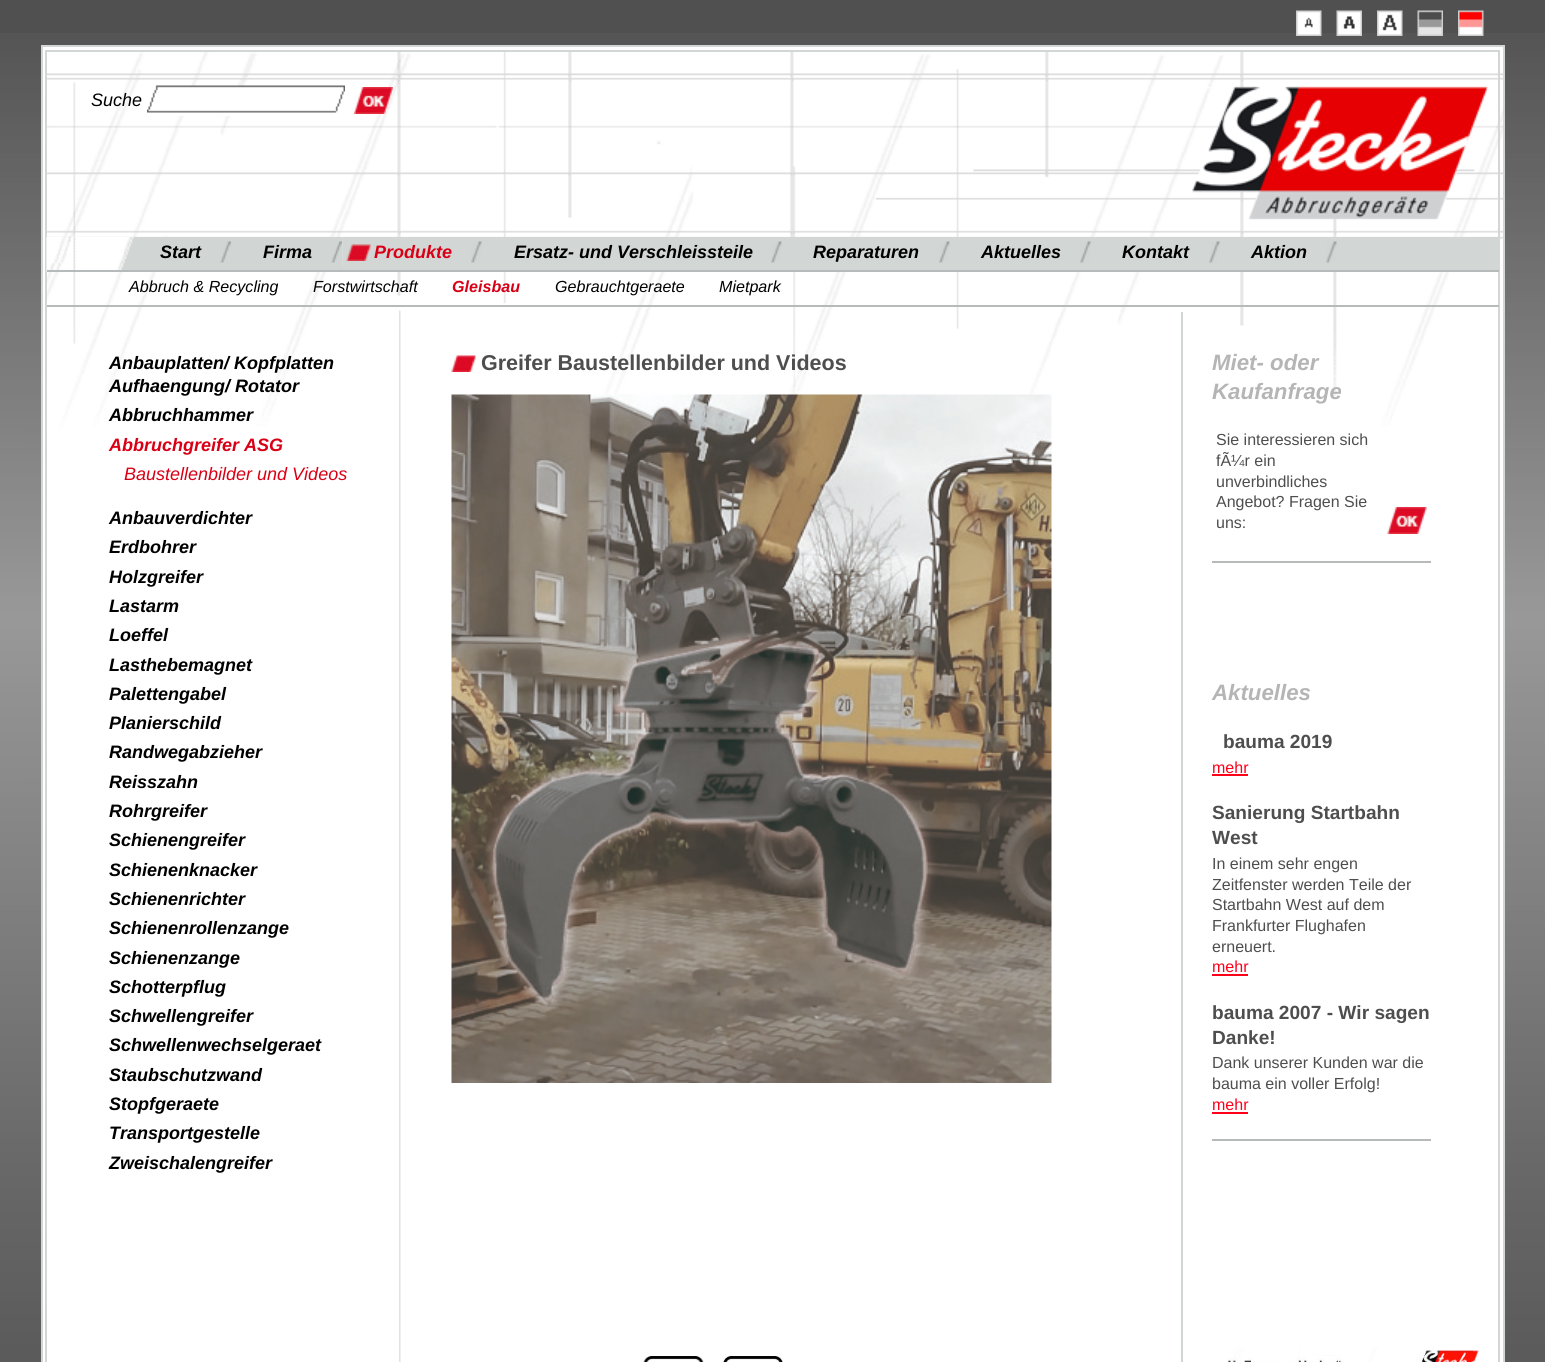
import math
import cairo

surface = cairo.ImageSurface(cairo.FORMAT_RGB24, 1545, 1362)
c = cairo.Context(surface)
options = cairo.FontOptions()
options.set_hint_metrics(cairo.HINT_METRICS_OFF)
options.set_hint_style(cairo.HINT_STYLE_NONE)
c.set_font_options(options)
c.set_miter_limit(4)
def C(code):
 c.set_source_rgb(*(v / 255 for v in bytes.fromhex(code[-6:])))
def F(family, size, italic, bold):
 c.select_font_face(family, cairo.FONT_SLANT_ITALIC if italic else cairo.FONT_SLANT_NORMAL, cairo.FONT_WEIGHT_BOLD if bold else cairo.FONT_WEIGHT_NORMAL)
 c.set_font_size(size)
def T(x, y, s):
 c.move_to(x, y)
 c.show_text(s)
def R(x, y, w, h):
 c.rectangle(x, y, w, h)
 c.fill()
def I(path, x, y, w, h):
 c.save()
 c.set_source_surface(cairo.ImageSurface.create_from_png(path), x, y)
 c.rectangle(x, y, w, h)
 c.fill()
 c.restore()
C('505050')
c.paint()
I('1.png',0,33,1545,1329)
I('2.png',1296,10,26,26)
I('3.png',1336,10,26,26)
I('4.png',1377,10,26,26)
I('5.png',1417,10,26,26)
I('6.png',1458,10,26,26)
C('ffffff')
R(43,47,1460,1315)
I('7.png',47,51,1456,376)
c.rectangle(42,46,1462,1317)
C('d2d7d6')
c.stroke()
c.rectangle(46,51,1453,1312)
c.stroke()
F('Liberation Sans',18,1,0)
C('000000')
T(91,106,'Suche')
C('ffffff')
R(179,86,66,30)
I('8.png',147,85,198,28)
I('9.png',354,87,39,27)
I('10.png',1192,86,297,134)
C('d2d7d6')
R(343,237,1155,33)
I('11.png',46,237,297,35)
C('b7babb')
R(47,270,1452,2)
F('Liberation Sans',18,1,1)
C('000000')
T(160,258,'Start')
I('12.png',220,241,11,22)
T(263,258,'Firma')
I('12.png',331,241,11,22)
I('13.png',346,244,25,17)
C('d90016')
T(374,258,'Produkte')
I('14.png',471,241,11,22)
C('000000')
T(514,258,'Ersatz- und Verschleissteile')
I('15.png',771,241,11,22)
T(813,258,'Reparaturen')
I('15.png',939,241,11,22)
T(981,258,'Aktuelles')
I('14.png',1080,241,11,22)
T(1122,258,'Kontakt')
I('14.png',1209,241,11,22)
T(1251,258,'Aktion')
I('14.png',1326,241,11,22)
C('b7babb')
R(47,305,1452,2)
F('Liberation Sans',16.1,1,0)
C('000000')
T(129,292,'Abbruch & Recycling')
T(313,292,'Forstwirtschaft')
F('Liberation Sans',16.1,1,1)
C('d90016')
T(452,292,'Gleisbau')
F('Liberation Sans',16.1,1,0)
C('000000')
T(555,292,'Gebrauchtgeraete')
T(719,292,'Mietpark')
I('16.png',399,310,2,1052)
F('Liberation Sans',18,1,1)
T(109,369,'Anbauplatten/ Kopfplatten')
T(109,392,'Aufhaengung/ Rotator')
T(109,421,'Abbruchhammer')
C('d90016')
T(109,451,'Abbruchgreifer ASG')
F('Liberation Sans',18,1,0)
T(124,480,'Baustellenbilder und Videos')
F('Liberation Sans',18,1,1)
C('000000')
T(109,524,'Anbauverdichter')
T(109,553,'Erdbohrer')
T(109,583,'Holzgreifer')
T(109,612,'Lastarm')
T(109,641,'Loeffel')
T(109,671,'Lasthebemagnet')
T(109,700,'Palettengabel')
T(109,729,'Planierschild')
T(109,758,'Randwegabzieher')
T(109,788,'Reisszahn')
T(109,817,'Rohrgreifer')
T(109,846,'Schienengreifer')
T(109,876,'Schienenknacker')
T(109,905,'Schienenrichter')
T(109,934,'Schienenrollenzange')
T(109,964,'Schienenzange')
T(109,993,'Schotterpflug')
T(109,1022,'Schwellengreifer')
T(109,1051,'Schwellenwechselgeraet')
T(109,1081,'Staubschutzwand')
T(109,1110,'Stopfgeraete')
T(109,1139,'Transportgestelle')
T(109,1169,'Zweischalengreifer')
I('17.png',451,355,25,17)
F('Liberation Sans',21.5,0,1)
C('4e4e4e')
T(481,370,'Greifer Baustellenbilder und Videos')
I('18.png',451,394,601,689)
I('19.png',643,1356,61,6)
I('20.png',723,1356,60,6)
C('d2d7d6')
R(1181,312,2,1050)
C('b7babb')
R(1212,561,219,2)
F('Liberation Sans',22.25,1,1)
C('b5b5b5')
T(1212,370,'Miet- oder')
T(1212,399,'Kaufanfrage')
F('Liberation Sans',16,0,0)
C('4e4e4e')
T(1216,445,'Sie interessieren sich')
T(1216,466,'fÃ¼r ein')
T(1216,487,'unverbindliches')
T(1216,507,'Angebot? Fragen Sie')
T(1216,528,'uns:')
I('21.png',1387,507,40,27)
C('b7babb')
R(1212,1139,219,2)
F('Liberation Sans',22.25,1,1)
C('b5b5b5')
T(1212,700,'Aktuelles')
F('Liberation Sans',19.1,0,1)
C('4e4e4e')
T(1223,748,'bauma 2019')
F('Liberation Sans',16,0,0)
C('ff001a')
T(1212,773,'mehr')
R(1212,774,36,2)
F('Liberation Sans',19.1,0,1)
C('4e4e4e')
T(1212,819,'Sanierung Startbahn')
T(1212,844,'West')
F('Liberation Sans',16,0,0)
T(1212,869,'In einem sehr engen')
T(1212,890,'Zeitfenster werden Teile der')
T(1212,910,'Startbahn West auf dem')
T(1212,931,'Frankfurter Flughafen')
T(1212,952,'erneuert.')
C('ff001a')
T(1212,972,'mehr')
R(1212,974,36,2)
F('Liberation Sans',19.1,0,1)
C('4e4e4e')
T(1212,1019,'bauma 2007 - Wir sagen')
T(1212,1044,'Danke!')
F('Liberation Sans',16,0,0)
T(1212,1068,'Dank unserer Kunden war die')
T(1212,1089,'bauma ein voller Erfolg!')
C('ff001a')
T(1212,1110,'mehr')
R(1212,1112,36,2)
I('22.png',1227,1347,252,15)
surface.write_to_png('o.png')
